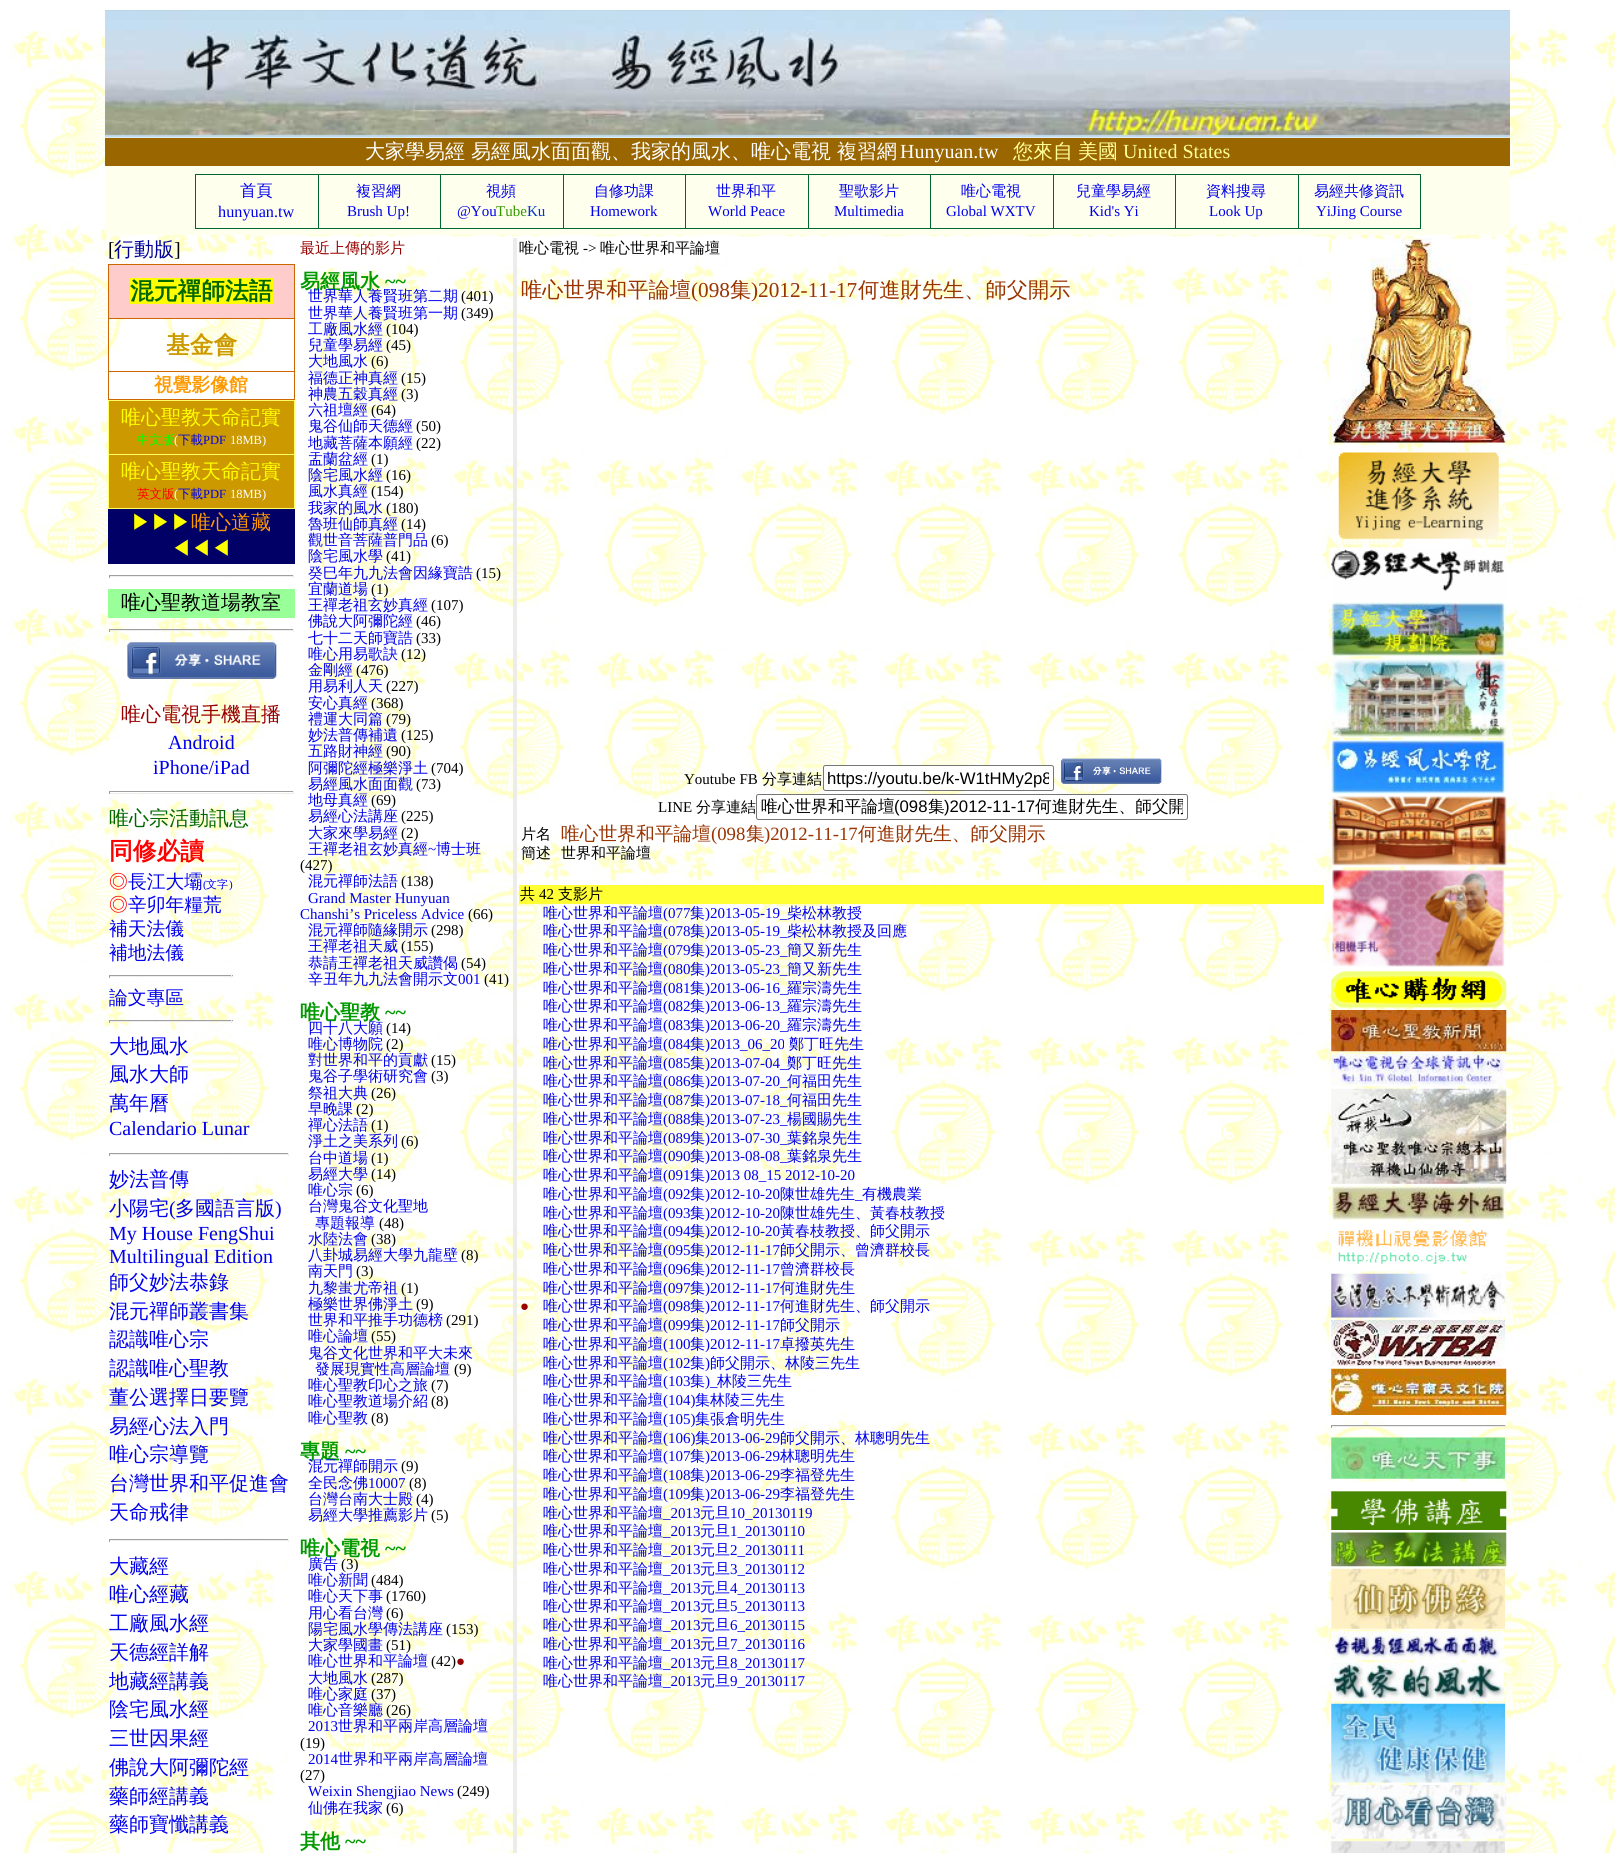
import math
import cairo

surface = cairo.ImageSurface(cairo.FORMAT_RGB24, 1615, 1853)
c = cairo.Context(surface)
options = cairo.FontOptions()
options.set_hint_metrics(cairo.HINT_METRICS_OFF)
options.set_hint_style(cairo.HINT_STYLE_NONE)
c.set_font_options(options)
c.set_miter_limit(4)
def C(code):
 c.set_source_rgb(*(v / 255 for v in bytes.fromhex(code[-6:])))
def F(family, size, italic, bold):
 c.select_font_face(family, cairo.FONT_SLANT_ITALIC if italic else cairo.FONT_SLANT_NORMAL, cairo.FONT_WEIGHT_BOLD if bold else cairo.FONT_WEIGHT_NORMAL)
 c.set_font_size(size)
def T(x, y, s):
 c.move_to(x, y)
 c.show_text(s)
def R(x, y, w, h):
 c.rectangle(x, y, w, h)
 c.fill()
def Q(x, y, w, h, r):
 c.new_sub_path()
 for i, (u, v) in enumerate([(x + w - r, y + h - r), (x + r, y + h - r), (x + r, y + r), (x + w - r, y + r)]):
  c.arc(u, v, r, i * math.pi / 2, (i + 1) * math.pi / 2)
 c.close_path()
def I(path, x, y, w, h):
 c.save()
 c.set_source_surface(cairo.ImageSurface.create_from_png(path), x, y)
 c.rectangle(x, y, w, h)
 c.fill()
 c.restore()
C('ffffff')
c.paint()
I('1.png',10,20,1605,1833)
I('2.png',105,10,1405,128)
C('996600')
R(105,138,1405,28)
F('WenQuanYi Zen Hei Medium',20,0,0)
C('ffffff')
T(365,158,'大家學易經 易經風水面面觀、我家的風水、唯心電視 複習網')
F('Liberation Serif',20,0,0)
T(900,158,'Hunyuan.tw')
F('WenQuanYi Zen Hei Medium',20,0,0)
C('ffff99')
T(1013,158,'您來自')
T(1078,158,'美國')
F('Liberation Serif',20,0,0)
T(1123,158,'United States')
C('ffffee')
R(105,166,1405,69)
C('006633')
R(195,174,1226,1)
R(1420,174,1,55)
R(195,228,1226,1)
R(195,174,1,55)
F('WenQuanYi Zen Hei Medium',16.25,0,0)
C('0000ee')
T(240,196,'首頁')
F('Liberation Serif',16.25,0,0)
T(218,217,'hunyuan.tw')
C('006633')
R(318,174,1,55)
F('WenQuanYi Zen Hei Medium',15,0,0)
C('0000ee')
T(356,196,'複習網')
F('Liberation Serif',15,0,0)
T(347,216,'Brush Up!')
C('006633')
R(440,174,1,55)
F('WenQuanYi Zen Hei Medium',15,0,0)
C('0000ee')
T(486,196,'視頻')
F('Liberation Serif',15,0,0)
T(457,216,'@You')
C('339900')
T(496,216,'Tube')
C('0033cc')
T(527,216,'Ku')
C('006633')
R(563,174,1,55)
F('WenQuanYi Zen Hei Medium',15,0,0)
C('0000ee')
T(594,196,'自修功課')
F('Liberation Serif',15,0,0)
T(590,216,'Homework')
C('006633')
R(685,174,1,55)
F('WenQuanYi Zen Hei Medium',15,0,0)
C('0000ee')
T(716,196,'世界和平')
F('Liberation Serif',15,0,0)
T(708,216,'World Peace')
C('006633')
R(808,174,1,55)
F('WenQuanYi Zen Hei Medium',15,0,0)
C('0000ee')
T(839,196,'聖歌影片')
F('Liberation Serif',15,0,0)
T(834,216,'Multimedia')
C('006633')
R(930,174,1,55)
F('WenQuanYi Zen Hei Medium',15,0,0)
C('0000ee')
T(961,196,'唯心電視')
F('Liberation Serif',15,0,0)
T(946,216,'Global WXTV')
C('006633')
R(1053,174,1,55)
F('WenQuanYi Zen Hei Medium',15,0,0)
C('0000ee')
T(1076,196,'兒童學易經')
F('Liberation Serif',15,0,0)
T(1089,216,'Kid\'s Yi')
C('006633')
R(1175,174,1,55)
F('WenQuanYi Zen Hei Medium',15,0,0)
C('0000ee')
T(1206,196,'資料搜尋')
F('Liberation Serif',15,0,0)
T(1209,216,'Look Up')
C('006633')
R(1298,174,1,55)
F('WenQuanYi Zen Hei Medium',15,0,0)
C('0000ee')
T(1314,196,'易經共修資訊')
F('Liberation Serif',15,0,0)
T(1316,216,'YiJing Course')
F('Liberation Serif',20,0,0)
C('000000')
T(108,256,'[')
F('WenQuanYi Zen Hei Medium',20,0,0)
C('000099')
T(114,256,'行動版')
F('Liberation Serif',20,0,0)
C('000000')
T(174,256,']')
C('cc6600')
R(108,264,187,1)
R(294,264,1,136)
R(108,399,187,1)
R(108,264,1,136)
C('ffcccc')
R(109,265,185,53)
C('ffff00')
R(130,278,143,26)
F('WenQuanYi Zen Hei',23.75,0,1)
C('006600')
T(130,299,'混元禪師法語')
C('cc6600')
R(108,318,187,1)
C('cc9900')
T(166,353,'基金會')
C('cc6600')
R(108,371,187,1)
F('WenQuanYi Zen Hei',18.75,0,1)
C('ff9900')
T(154,391,'視覺影像館')
C('ffff66')
R(108,400,187,1)
R(294,400,1,109)
R(108,508,187,1)
R(108,400,1,109)
C('cc9900')
R(109,401,185,53)
F('WenQuanYi Zen Hei Medium',20,0,0)
C('ffff00')
T(121,424,'唯心聖教天命記實')
F('WenQuanYi Zen Hei Medium',12.5,0,0)
C('00ff00')
T(137,444,'中文版')
F('Liberation Serif',12.5,0,0)
C('ffffff')
T(174,444,'(')
F('WenQuanYi Zen Hei Medium',12.5,0,0)
C('0000ee')
T(178,444,'下載')
F('Liberation Serif',12.5,0,0)
T(203,444,'PDF')
C('ffffff')
T(230,444,'18MB)')
C('cc9900')
R(109,455,185,53)
C('ffff66')
R(108,454,187,1)
F('WenQuanYi Zen Hei Medium',20,0,0)
C('ffff00')
T(121,478,'唯心聖教天命記實')
F('WenQuanYi Zen Hei Medium',12.5,0,0)
C('ff0000')
T(137,498,'英文版')
F('Liberation Serif',12.5,0,0)
C('ffffff')
T(174,498,'(')
F('WenQuanYi Zen Hei Medium',12.5,0,0)
C('0000ee')
T(178,498,'下載')
F('Liberation Serif',12.5,0,0)
T(203,498,'PDF')
C('ffffff')
T(230,498,'18MB)')
C('000066')
R(108,509,187,55)
F('WenQuanYi Zen Hei Medium',20,0,0)
C('ffff00')
T(131,529,'▶▶▶')
C('ff9900')
T(191,529,'唯心道藏')
C('ffff00')
T(171,555,'◀◀◀')
C('9f9f9f')
R(109,575,185,1)
C('eeeeee')
R(293,575,1,3)
R(109,576,185,1)
C('9f9f9f')
R(109,575,1,3)
C('99ff99')
R(108,589,187,29)
C('000000')
T(121,609,'唯心聖教道場教室')
C('9f9f9f')
R(109,629,185,1)
C('eeeeee')
R(293,629,1,3)
R(109,630,185,1)
C('9f9f9f')
R(109,629,1,3)
I('3.png',127,642,150,37)
C('990000')
T(121,721,'唯心電視手機直播')
F('Liberation Serif',20,0,0)
C('0000ee')
T(168,749,'Android')
T(153,774,'iPhone/iPad')
C('9f9f9f')
R(109,791,185,1)
C('eeeeee')
R(293,791,1,3)
R(109,793,185,1)
C('9f9f9f')
R(109,791,1,3)
F('WenQuanYi Zen Hei Medium',20,0,0)
C('006600')
T(109,825,'唯心宗活動訊息')
F('WenQuanYi Zen Hei',23.75,0,1)
C('ff0000')
T(109,859,'同修必讀')
F('WenQuanYi Zen Hei Medium',18.75,0,0)
T(109,888,'◎')
C('0000ee')
T(128,888,'長江大壩')
F('Liberation Serif',11,0,0)
T(203,888,'(')
F('WenQuanYi Zen Hei Medium',11,0,0)
T(206,888,'文字')
F('Liberation Serif',11,0,0)
T(229,888,')')
F('WenQuanYi Zen Hei Medium',18.75,0,0)
C('ff0000')
T(109,911,'◎')
C('0000ee')
T(128,911,'辛卯年糧荒')
T(109,935,'補天法儀')
T(109,959,'補地法儀')
C('9f9f9f')
R(109,975,124,1)
C('eeeeee')
R(231,975,1,3)
R(109,976,124,1)
C('9f9f9f')
R(109,975,1,3)
C('0000ee')
T(109,1004,'論文專區')
C('9f9f9f')
R(109,1020,124,1)
C('eeeeee')
R(231,1020,1,3)
R(109,1021,124,1)
C('9f9f9f')
R(109,1020,1,3)
F('WenQuanYi Zen Hei Medium',20,0,0)
C('0000ee')
T(109,1053,'大地風水')
T(109,1081,'風水大師')
T(109,1110,'萬年曆')
F('Liberation Serif',20,0,0)
T(109,1135,'Calendario Lunar')
C('9f9f9f')
R(109,1153,180,1)
C('eeeeee')
R(288,1153,1,3)
R(109,1154,180,1)
C('9f9f9f')
R(109,1153,1,3)
F('WenQuanYi Zen Hei Medium',20,0,0)
C('0000ee')
T(109,1186,'妙法普傳')
T(109,1215,'小陽宅')
F('Liberation Serif',20,0,0)
T(169,1215,'(')
F('WenQuanYi Zen Hei Medium',20,0,0)
T(175,1215,'多國語言版')
F('Liberation Serif',20,0,0)
T(275,1215,')')
T(109,1240,'My House FengShui')
T(109,1263,'Multilingual Edition')
F('WenQuanYi Zen Hei Medium',20,0,0)
T(109,1289,'師父妙法恭錄')
T(109,1318,'混元禪師叢書集')
T(109,1346,'認識唯心宗')
T(109,1375,'認識唯心聖教')
T(109,1404,'董公選擇日要覽')
T(109,1433,'易經心法入門')
T(109,1461,'唯心宗導覽')
T(109,1490,'台灣世界和平促進會')
T(109,1519,'天命戒律')
C('9f9f9f')
R(109,1539,180,1)
C('eeeeee')
R(288,1539,1,3)
R(109,1540,180,1)
C('9f9f9f')
R(109,1539,1,3)
C('0000ee')
T(109,1573,'大藏經')
T(109,1601,'唯心經藏')
T(109,1630,'工廠風水經')
T(109,1659,'天德經詳解')
T(109,1688,'地藏經講義')
T(109,1716,'陰宅風水經')
T(109,1745,'三世因果經')
T(109,1774,'佛說大阿彌陀經')
T(109,1803,'藥師經講義')
T(109,1831,'藥師寶懺講義')
I('4.png',298,236,1031,1617)
F('WenQuanYi Zen Hei Medium',15,0,0)
C('990000')
T(300,253,'最近上傳的影片')
F('WenQuanYi Zen Hei',20,0,1)
C('009900')
T(300,288,'易經風水')
F('Liberation Serif',20,0,1)
T(385,288,'~~')
F('WenQuanYi Zen Hei Medium',15,0,0)
C('0000ee')
T(308,301,'世界華人養賢班第二期')
F('Liberation Serif',15,0,0)
C('000000')
T(461,301,'(401)')
F('WenQuanYi Zen Hei Medium',15,0,0)
C('0000ee')
T(308,318,'世界華人養賢班第一期')
F('Liberation Serif',15,0,0)
C('000000')
T(461,318,'(349)')
F('WenQuanYi Zen Hei Medium',15,0,0)
C('0000ee')
T(308,334,'工廠風水經')
F('Liberation Serif',15,0,0)
C('000000')
T(386,334,'(104)')
F('WenQuanYi Zen Hei Medium',15,0,0)
C('0000ee')
T(308,350,'兒童學易經')
F('Liberation Serif',15,0,0)
C('000000')
T(386,350,'(45)')
F('WenQuanYi Zen Hei Medium',15,0,0)
C('0000ee')
T(308,366,'大地風水')
F('Liberation Serif',15,0,0)
C('000000')
T(371,366,'(6)')
F('WenQuanYi Zen Hei Medium',15,0,0)
C('0000ee')
T(308,383,'福德正神真經')
F('Liberation Serif',15,0,0)
C('000000')
T(401,383,'(15)')
F('WenQuanYi Zen Hei Medium',15,0,0)
C('0000ee')
T(308,399,'神農五穀真經')
F('Liberation Serif',15,0,0)
C('000000')
T(401,399,'(3)')
F('WenQuanYi Zen Hei Medium',15,0,0)
C('0000ee')
T(308,415,'六祖壇經')
F('Liberation Serif',15,0,0)
C('000000')
T(371,415,'(64)')
F('WenQuanYi Zen Hei Medium',15,0,0)
C('0000ee')
T(308,431,'鬼谷仙師天德經')
F('Liberation Serif',15,0,0)
C('000000')
T(416,431,'(50)')
F('WenQuanYi Zen Hei Medium',15,0,0)
C('0000ee')
T(308,448,'地藏菩薩本願經')
F('Liberation Serif',15,0,0)
C('000000')
T(416,448,'(22)')
F('WenQuanYi Zen Hei Medium',15,0,0)
C('0000ee')
T(308,464,'盂蘭盆經')
F('Liberation Serif',15,0,0)
C('000000')
T(371,464,'(1)')
F('WenQuanYi Zen Hei Medium',15,0,0)
C('0000ee')
T(308,480,'陰宅風水經')
F('Liberation Serif',15,0,0)
C('000000')
T(386,480,'(16)')
F('WenQuanYi Zen Hei Medium',15,0,0)
C('0000ee')
T(308,496,'風水真經')
F('Liberation Serif',15,0,0)
C('000000')
T(371,496,'(154)')
F('WenQuanYi Zen Hei Medium',15,0,0)
C('0000ee')
T(308,513,'我家的風水')
F('Liberation Serif',15,0,0)
C('000000')
T(386,513,'(180)')
F('WenQuanYi Zen Hei Medium',15,0,0)
C('0000ee')
T(308,529,'魯班仙師真經')
F('Liberation Serif',15,0,0)
C('000000')
T(401,529,'(14)')
F('WenQuanYi Zen Hei Medium',15,0,0)
C('0000ee')
T(308,545,'觀世音菩薩普門品')
F('Liberation Serif',15,0,0)
C('000000')
T(431,545,'(6)')
F('WenQuanYi Zen Hei Medium',15,0,0)
C('0000ee')
T(308,561,'陰宅風水學')
F('Liberation Serif',15,0,0)
C('000000')
T(386,561,'(41)')
F('WenQuanYi Zen Hei Medium',15,0,0)
C('0000ee')
T(308,578,'癸巳年九九法會因緣寶誥')
F('Liberation Serif',15,0,0)
C('000000')
T(476,578,'(15)')
F('WenQuanYi Zen Hei Medium',15,0,0)
C('0000ee')
T(308,594,'宜蘭道場')
F('Liberation Serif',15,0,0)
C('000000')
T(371,594,'(1)')
F('WenQuanYi Zen Hei Medium',15,0,0)
C('0000ee')
T(308,610,'王禪老祖玄妙真經')
F('Liberation Serif',15,0,0)
C('000000')
T(431,610,'(107)')
F('WenQuanYi Zen Hei Medium',15,0,0)
C('0000ee')
T(308,626,'佛說大阿彌陀經')
F('Liberation Serif',15,0,0)
C('000000')
T(416,626,'(46)')
F('WenQuanYi Zen Hei Medium',15,0,0)
C('0000ee')
T(308,643,'七十二天師寶誥')
F('Liberation Serif',15,0,0)
C('000000')
T(416,643,'(33)')
F('WenQuanYi Zen Hei Medium',15,0,0)
C('0000ee')
T(308,659,'唯心用易歌訣')
F('Liberation Serif',15,0,0)
C('000000')
T(401,659,'(12)')
F('WenQuanYi Zen Hei Medium',15,0,0)
C('0000ee')
T(308,675,'金剛經')
F('Liberation Serif',15,0,0)
C('000000')
T(356,675,'(476)')
F('WenQuanYi Zen Hei Medium',15,0,0)
C('0000ee')
T(308,691,'用易利人天')
F('Liberation Serif',15,0,0)
C('000000')
T(386,691,'(227)')
F('WenQuanYi Zen Hei Medium',15,0,0)
C('0000ee')
T(308,708,'安心真經')
F('Liberation Serif',15,0,0)
C('000000')
T(371,708,'(368)')
F('WenQuanYi Zen Hei Medium',15,0,0)
C('0000ee')
T(308,724,'禮運大同篇')
F('Liberation Serif',15,0,0)
C('000000')
T(386,724,'(79)')
F('WenQuanYi Zen Hei Medium',15,0,0)
C('0000ee')
T(308,740,'妙法普傳補遺')
F('Liberation Serif',15,0,0)
C('000000')
T(401,740,'(125)')
F('WenQuanYi Zen Hei Medium',15,0,0)
C('0000ee')
T(308,756,'五路財神經')
F('Liberation Serif',15,0,0)
C('000000')
T(386,756,'(90)')
F('WenQuanYi Zen Hei Medium',15,0,0)
C('0000ee')
T(308,773,'阿彌陀經極樂淨土')
F('Liberation Serif',15,0,0)
C('000000')
T(431,773,'(704)')
F('WenQuanYi Zen Hei Medium',15,0,0)
C('0000ee')
T(308,789,'易經風水面面觀')
F('Liberation Serif',15,0,0)
C('000000')
T(416,789,'(73)')
F('WenQuanYi Zen Hei Medium',15,0,0)
C('0000ee')
T(308,805,'地母真經')
F('Liberation Serif',15,0,0)
C('000000')
T(371,805,'(69)')
F('WenQuanYi Zen Hei Medium',15,0,0)
C('0000ee')
T(308,821,'易經心法講座')
F('Liberation Serif',15,0,0)
C('000000')
T(401,821,'(225)')
F('WenQuanYi Zen Hei Medium',15,0,0)
C('0000ee')
T(308,838,'大家來學易經')
F('Liberation Serif',15,0,0)
C('000000')
T(401,838,'(2)')
F('WenQuanYi Zen Hei Medium',15,0,0)
C('0000ee')
T(308,854,'王禪老祖玄妙真經')
F('Liberation Serif',15,0,0)
T(428,854,'~')
F('WenQuanYi Zen Hei Medium',15,0,0)
T(436,854,'博士班')
F('Liberation Serif',15,0,0)
C('000000')
T(300,870,'(427)')
F('WenQuanYi Zen Hei Medium',15,0,0)
C('0000ee')
T(308,886,'混元禪師法語')
F('Liberation Serif',15,0,0)
C('000000')
T(401,886,'(138)')
C('0000ee')
T(308,903,'Grand Master Hunyuan')
T(300,919,'Chanshi’s Priceless Advice')
C('000000')
T(468,919,'(66)')
F('WenQuanYi Zen Hei Medium',15,0,0)
C('0000ee')
T(308,935,'混元禪師隨緣開示')
F('Liberation Serif',15,0,0)
C('000000')
T(431,935,'(298)')
F('WenQuanYi Zen Hei Medium',15,0,0)
C('0000ee')
T(308,951,'王禪老祖天威')
F('Liberation Serif',15,0,0)
C('000000')
T(401,951,'(155)')
F('WenQuanYi Zen Hei Medium',15,0,0)
C('0000ee')
T(308,968,'恭請王禪老祖天威讚偈')
F('Liberation Serif',15,0,0)
C('000000')
T(461,968,'(54)')
F('WenQuanYi Zen Hei Medium',15,0,0)
C('0000ee')
T(308,984,'辛丑年九九法會開示文')
F('Liberation Serif',15,0,0)
T(458,984,'001')
C('000000')
T(484,984,'(41)')
F('WenQuanYi Zen Hei',20,0,1)
C('009900')
T(300,1019,'唯心聖教')
F('Liberation Serif',20,0,1)
T(385,1019,'~~')
F('WenQuanYi Zen Hei Medium',15,0,0)
C('0000ee')
T(308,1033,'四十八大願')
F('Liberation Serif',15,0,0)
C('000000')
T(386,1033,'(14)')
F('WenQuanYi Zen Hei Medium',15,0,0)
C('0000ee')
T(308,1049,'唯心博物院')
F('Liberation Serif',15,0,0)
C('000000')
T(386,1049,'(2)')
F('WenQuanYi Zen Hei Medium',15,0,0)
C('0000ee')
T(308,1065,'對世界和平的貢獻')
F('Liberation Serif',15,0,0)
C('000000')
T(431,1065,'(15)')
F('WenQuanYi Zen Hei Medium',15,0,0)
C('0000ee')
T(308,1081,'鬼谷子學術研究會')
F('Liberation Serif',15,0,0)
C('000000')
T(431,1081,'(3)')
F('WenQuanYi Zen Hei Medium',15,0,0)
C('0000ee')
T(308,1098,'祭祖大典')
F('Liberation Serif',15,0,0)
C('000000')
T(371,1098,'(26)')
F('WenQuanYi Zen Hei Medium',15,0,0)
C('0000ee')
T(308,1114,'早晚課')
F('Liberation Serif',15,0,0)
C('000000')
T(356,1114,'(2)')
F('WenQuanYi Zen Hei Medium',15,0,0)
C('0000ee')
T(308,1130,'禪心法語')
F('Liberation Serif',15,0,0)
C('000000')
T(371,1130,'(1)')
F('WenQuanYi Zen Hei Medium',15,0,0)
C('0000ee')
T(308,1146,'淨土之美系列')
F('Liberation Serif',15,0,0)
C('000000')
T(401,1146,'(6)')
F('WenQuanYi Zen Hei Medium',15,0,0)
C('0000ee')
T(308,1163,'台中道場')
F('Liberation Serif',15,0,0)
C('000000')
T(371,1163,'(1)')
F('WenQuanYi Zen Hei Medium',15,0,0)
C('0000ee')
T(308,1179,'易經大學')
F('Liberation Serif',15,0,0)
C('000000')
T(371,1179,'(14)')
F('WenQuanYi Zen Hei Medium',15,0,0)
C('0000ee')
T(308,1195,'唯心宗')
F('Liberation Serif',15,0,0)
C('000000')
T(356,1195,'(6)')
F('WenQuanYi Zen Hei Medium',15,0,0)
C('0000ee')
T(308,1211,'台灣鬼谷文化聖地')
T(315,1228,'專題報導')
F('Liberation Serif',15,0,0)
C('000000')
T(379,1228,'(48)')
F('WenQuanYi Zen Hei Medium',15,0,0)
C('0000ee')
T(308,1244,'水陸法會')
F('Liberation Serif',15,0,0)
C('000000')
T(371,1244,'(38)')
F('WenQuanYi Zen Hei Medium',15,0,0)
C('0000ee')
T(308,1260,'八卦城易經大學九龍壁')
F('Liberation Serif',15,0,0)
C('000000')
T(461,1260,'(8)')
F('WenQuanYi Zen Hei Medium',15,0,0)
C('0000ee')
T(308,1276,'南天門')
F('Liberation Serif',15,0,0)
C('000000')
T(356,1276,'(3)')
F('WenQuanYi Zen Hei Medium',15,0,0)
C('0000ee')
T(308,1293,'九黎蚩尤帝祖')
F('Liberation Serif',15,0,0)
C('000000')
T(401,1293,'(1)')
F('WenQuanYi Zen Hei Medium',15,0,0)
C('0000ee')
T(308,1309,'極樂世界佛淨土')
F('Liberation Serif',15,0,0)
C('000000')
T(416,1309,'(9)')
F('WenQuanYi Zen Hei Medium',15,0,0)
C('0000ee')
T(308,1325,'世界和平推手功德榜')
F('Liberation Serif',15,0,0)
C('000000')
T(446,1325,'(291)')
F('WenQuanYi Zen Hei Medium',15,0,0)
C('0000ee')
T(308,1341,'唯心論壇')
F('Liberation Serif',15,0,0)
C('000000')
T(371,1341,'(55)')
F('WenQuanYi Zen Hei Medium',15,0,0)
C('0000ee')
T(308,1358,'鬼谷文化世界和平大未來')
T(315,1374,'發展現實性高層論壇')
F('Liberation Serif',15,0,0)
C('000000')
T(454,1374,'(9)')
F('WenQuanYi Zen Hei Medium',15,0,0)
C('0000ee')
T(308,1390,'唯心聖教印心之旅')
F('Liberation Serif',15,0,0)
C('000000')
T(431,1390,'(7)')
F('WenQuanYi Zen Hei Medium',15,0,0)
C('0000ee')
T(308,1406,'唯心聖教道場介紹')
F('Liberation Serif',15,0,0)
C('000000')
T(431,1406,'(8)')
F('WenQuanYi Zen Hei Medium',15,0,0)
C('0000ee')
T(308,1423,'唯心聖教')
F('Liberation Serif',15,0,0)
C('000000')
T(371,1423,'(8)')
F('WenQuanYi Zen Hei',20,0,1)
C('009900')
T(300,1458,'專題')
F('Liberation Serif',20,0,1)
T(345,1458,'~~')
F('WenQuanYi Zen Hei Medium',15,0,0)
C('0000ee')
T(308,1471,'混元禪師開示')
F('Liberation Serif',15,0,0)
C('000000')
T(401,1471,'(9)')
F('WenQuanYi Zen Hei Medium',15,0,0)
C('0000ee')
T(308,1488,'全民念佛')
F('Liberation Serif',15,0,0)
T(368,1488,'10007')
C('000000')
T(409,1488,'(8)')
F('WenQuanYi Zen Hei Medium',15,0,0)
C('0000ee')
T(308,1504,'台灣台南大士殿')
F('Liberation Serif',15,0,0)
C('000000')
T(416,1504,'(4)')
F('WenQuanYi Zen Hei Medium',15,0,0)
C('0000ee')
T(308,1520,'易經大學推薦影片')
F('Liberation Serif',15,0,0)
C('000000')
T(431,1520,'(5)')
F('WenQuanYi Zen Hei',20,0,1)
C('009900')
T(300,1555,'唯心電視')
F('Liberation Serif',20,0,1)
T(385,1555,'~~')
F('WenQuanYi Zen Hei Medium',15,0,0)
C('0000ee')
T(308,1569,'廣告')
F('Liberation Serif',15,0,0)
C('000000')
T(341,1569,'(3)')
F('WenQuanYi Zen Hei Medium',15,0,0)
C('0000ee')
T(308,1585,'唯心新聞')
F('Liberation Serif',15,0,0)
C('000000')
T(371,1585,'(484)')
F('WenQuanYi Zen Hei Medium',15,0,0)
C('0000ee')
T(308,1601,'唯心天下事')
F('Liberation Serif',15,0,0)
C('000000')
T(386,1601,'(1760)')
F('WenQuanYi Zen Hei Medium',15,0,0)
C('0000ee')
T(308,1618,'用心看台灣')
F('Liberation Serif',15,0,0)
C('000000')
T(386,1618,'(6)')
F('WenQuanYi Zen Hei Medium',15,0,0)
C('0000ee')
T(308,1634,'陽宅風水學傳法講座')
F('Liberation Serif',15,0,0)
C('000000')
T(446,1634,'(153)')
F('WenQuanYi Zen Hei Medium',15,0,0)
C('0000ee')
T(308,1650,'大家學國畫')
F('Liberation Serif',15,0,0)
C('000000')
T(386,1650,'(51)')
F('WenQuanYi Zen Hei Medium',15,0,0)
C('0000ee')
T(308,1666,'唯心世界和平論壇')
F('Liberation Serif',15,0,0)
C('000000')
T(431,1666,'(42)')
C('990000')
T(456,1666,'●')
F('WenQuanYi Zen Hei Medium',15,0,0)
C('0000ee')
T(308,1683,'大地風水')
F('Liberation Serif',15,0,0)
C('000000')
T(371,1683,'(287)')
F('WenQuanYi Zen Hei Medium',15,0,0)
C('0000ee')
T(308,1699,'唯心家庭')
F('Liberation Serif',15,0,0)
C('000000')
T(371,1699,'(37)')
F('WenQuanYi Zen Hei Medium',15,0,0)
C('0000ee')
T(308,1715,'唯心音樂廳')
F('Liberation Serif',15,0,0)
C('000000')
T(386,1715,'(26)')
C('0000ee')
T(308,1731,'2013')
F('WenQuanYi Zen Hei Medium',15,0,0)
T(338,1731,'世界和平兩岸高層論壇')
F('Liberation Serif',15,0,0)
C('000000')
T(300,1748,'(19)')
C('0000ee')
T(308,1764,'2014')
F('WenQuanYi Zen Hei Medium',15,0,0)
T(338,1764,'世界和平兩岸高層論壇')
F('Liberation Serif',15,0,0)
C('000000')
T(300,1780,'(27)')
C('0000ee')
T(308,1796,'Weixin Shengjiao News')
C('000000')
T(457,1796,'(249)')
F('WenQuanYi Zen Hei Medium',15,0,0)
C('0000ee')
T(308,1813,'仙佛在我家')
F('Liberation Serif',15,0,0)
C('000000')
T(386,1813,'(6)')
F('WenQuanYi Zen Hei',20,0,1)
C('009900')
T(300,1848,'其他')
F('Liberation Serif',20,0,1)
T(345,1848,'~~')
C('ececec')
R(513,238,4,1615)
F('WenQuanYi Zen Hei Medium',15,0,0)
C('000000')
T(519,253,'唯心電視')
F('Liberation Serif',15,0,0)
T(583,253,'->')
F('WenQuanYi Zen Hei Medium',15,0,0)
T(600,253,'唯心世界和平論壇')
F('WenQuanYi Zen Hei Medium',21.25,0,0)
C('993300')
T(521,297,'唯心世界和平論壇')
F('Liberation Serif',21.25,0,0)
T(691,297,'(098')
F('WenQuanYi Zen Hei Medium',21.25,0,0)
T(730,297,'集')
F('Liberation Serif',21.25,0,0)
T(751,297,')2012-11-17')
F('WenQuanYi Zen Hei Medium',21.25,0,0)
T(858,297,'何進財先生、師父開示')
F('Liberation Serif',15,0,0)
C('000000')
T(684,784,'Youtube FB')
F('WenQuanYi Zen Hei Medium',15,0,0)
T(762,784,'分享連結')
C('ffffff')
Q(823.5,765.5,230,25,2)
c.fill_preserve()
C('767676')
c.set_line_width(1)
c.stroke()
c.save()
c.rectangle(828,769,221,19)
c.clip()
F('Liberation Sans',16.7,0,0)
C('000000')
T(827,784,'https://youtu.be/k-W1tHMy2p8')
c.restore()
I('5.png',1061,758,101,26)
F('Liberation Serif',15,0,0)
C('000000')
T(658,812,'LINE')
F('WenQuanYi Zen Hei Medium',15,0,0)
T(696,812,'分享連結')
C('ffffff')
Q(756.5,794.5,431,25,2)
c.fill_preserve()
C('767676')
c.stroke()
F('WenQuanYi Zen Hei Medium',16.7,0,0)
C('000000')
T(761,812,'唯心世界和平論壇')
F('Liberation Sans',16.7,0,0)
T(894,812,'(098')
F('WenQuanYi Zen Hei Medium',16.7,0,0)
T(928,812,'集')
F('Liberation Sans',16.7,0,0)
T(944,812,')2012-11-17')
c.save()
c.rectangle(761,796,422,22)
c.clip()
F('WenQuanYi Zen Hei Medium',16.7,0,0)
T(1035,812,'何進財先生、師父開')
c.restore()
F('WenQuanYi Zen Hei Medium',15,0,0)
T(521,839,'片名')
F('WenQuanYi Zen Hei Medium',18.75,0,0)
C('993300')
T(561,840,'唯心世界和平論壇')
F('Liberation Serif',18.75,0,0)
T(711,840,'(098')
F('WenQuanYi Zen Hei Medium',18.75,0,0)
T(746,840,'集')
F('Liberation Serif',18.75,0,0)
T(764,840,')2012-11-17')
F('WenQuanYi Zen Hei Medium',18.75,0,0)
T(858,840,'何進財先生、師父開示')
F('WenQuanYi Zen Hei Medium',15,0,0)
C('000000')
T(521,858,'簡述')
T(561,858,'世界和平論壇')
C('ffff33')
R(519,885,805,19)
C('000000')
T(520,899,'共')
F('Liberation Serif',15,0,0)
T(539,899,'42')
F('WenQuanYi Zen Hei Medium',15,0,0)
T(558,899,'支影片')
C('0000ee')
T(543,918,'唯心世界和平論壇')
F('Liberation Serif',15,0,0)
T(663,918,'(077')
F('WenQuanYi Zen Hei Medium',15,0,0)
T(690,918,'集')
F('Liberation Serif',15,0,0)
T(705,918,')2013-05-19_')
F('WenQuanYi Zen Hei Medium',15,0,0)
T(787,918,'柴松林教授')
T(543,936,'唯心世界和平論壇')
F('Liberation Serif',15,0,0)
T(663,936,'(078')
F('WenQuanYi Zen Hei Medium',15,0,0)
T(690,936,'集')
F('Liberation Serif',15,0,0)
T(705,936,')2013-05-19_')
F('WenQuanYi Zen Hei Medium',15,0,0)
T(787,936,'柴松林教授及回應')
T(543,955,'唯心世界和平論壇')
F('Liberation Serif',15,0,0)
T(663,955,'(079')
F('WenQuanYi Zen Hei Medium',15,0,0)
T(690,955,'集')
F('Liberation Serif',15,0,0)
T(705,955,')2013-05-23_')
F('WenQuanYi Zen Hei Medium',15,0,0)
T(787,955,'簡又新先生')
T(543,974,'唯心世界和平論壇')
F('Liberation Serif',15,0,0)
T(663,974,'(080')
F('WenQuanYi Zen Hei Medium',15,0,0)
T(690,974,'集')
F('Liberation Serif',15,0,0)
T(705,974,')2013-05-23_')
F('WenQuanYi Zen Hei Medium',15,0,0)
T(787,974,'簡又新先生')
T(543,993,'唯心世界和平論壇')
F('Liberation Serif',15,0,0)
T(663,993,'(081')
F('WenQuanYi Zen Hei Medium',15,0,0)
T(690,993,'集')
F('Liberation Serif',15,0,0)
T(705,993,')2013-06-16_')
F('WenQuanYi Zen Hei Medium',15,0,0)
T(787,993,'羅宗濤先生')
T(543,1011,'唯心世界和平論壇')
F('Liberation Serif',15,0,0)
T(663,1011,'(082')
F('WenQuanYi Zen Hei Medium',15,0,0)
T(690,1011,'集')
F('Liberation Serif',15,0,0)
T(705,1011,')2013-06-13_')
F('WenQuanYi Zen Hei Medium',15,0,0)
T(787,1011,'羅宗濤先生')
T(543,1030,'唯心世界和平論壇')
F('Liberation Serif',15,0,0)
T(663,1030,'(083')
F('WenQuanYi Zen Hei Medium',15,0,0)
T(690,1030,'集')
F('Liberation Serif',15,0,0)
T(705,1030,')2013-06-20_')
F('WenQuanYi Zen Hei Medium',15,0,0)
T(787,1030,'羅宗濤先生')
T(543,1049,'唯心世界和平論壇')
F('Liberation Serif',15,0,0)
T(663,1049,'(084')
F('WenQuanYi Zen Hei Medium',15,0,0)
T(690,1049,'集')
F('Liberation Serif',15,0,0)
T(705,1049,')2013_06_20')
F('WenQuanYi Zen Hei Medium',15,0,0)
T(789,1049,'鄭丁旺先生')
T(543,1068,'唯心世界和平論壇')
F('Liberation Serif',15,0,0)
T(663,1068,'(085')
F('WenQuanYi Zen Hei Medium',15,0,0)
T(690,1068,'集')
F('Liberation Serif',15,0,0)
T(705,1068,')2013-07-04_')
F('WenQuanYi Zen Hei Medium',15,0,0)
T(787,1068,'鄭丁旺先生')
T(543,1086,'唯心世界和平論壇')
F('Liberation Serif',15,0,0)
T(663,1086,'(086')
F('WenQuanYi Zen Hei Medium',15,0,0)
T(690,1086,'集')
F('Liberation Serif',15,0,0)
T(705,1086,')2013-07-20_')
F('WenQuanYi Zen Hei Medium',15,0,0)
T(787,1086,'何福田先生')
T(543,1105,'唯心世界和平論壇')
F('Liberation Serif',15,0,0)
T(663,1105,'(087')
F('WenQuanYi Zen Hei Medium',15,0,0)
T(690,1105,'集')
F('Liberation Serif',15,0,0)
T(705,1105,')2013-07-18_')
F('WenQuanYi Zen Hei Medium',15,0,0)
T(787,1105,'何福田先生')
T(543,1124,'唯心世界和平論壇')
F('Liberation Serif',15,0,0)
T(663,1124,'(088')
F('WenQuanYi Zen Hei Medium',15,0,0)
T(690,1124,'集')
F('Liberation Serif',15,0,0)
T(705,1124,')2013-07-23_')
F('WenQuanYi Zen Hei Medium',15,0,0)
T(787,1124,'楊國賜先生')
T(543,1143,'唯心世界和平論壇')
F('Liberation Serif',15,0,0)
T(663,1143,'(089')
F('WenQuanYi Zen Hei Medium',15,0,0)
T(690,1143,'集')
F('Liberation Serif',15,0,0)
T(705,1143,')2013-07-30_')
F('WenQuanYi Zen Hei Medium',15,0,0)
T(787,1143,'葉銘泉先生')
T(543,1161,'唯心世界和平論壇')
F('Liberation Serif',15,0,0)
T(663,1161,'(090')
F('WenQuanYi Zen Hei Medium',15,0,0)
T(690,1161,'集')
F('Liberation Serif',15,0,0)
T(705,1161,')2013-08-08_')
F('WenQuanYi Zen Hei Medium',15,0,0)
T(787,1161,'葉銘泉先生')
T(543,1180,'唯心世界和平論壇')
F('Liberation Serif',15,0,0)
T(663,1180,'(091')
F('WenQuanYi Zen Hei Medium',15,0,0)
T(690,1180,'集')
F('Liberation Serif',15,0,0)
T(705,1180,')2013 08_15 2012-10-20')
F('WenQuanYi Zen Hei Medium',15,0,0)
T(543,1199,'唯心世界和平論壇')
F('Liberation Serif',15,0,0)
T(663,1199,'(092')
F('WenQuanYi Zen Hei Medium',15,0,0)
T(690,1199,'集')
F('Liberation Serif',15,0,0)
T(705,1199,')2012-10-20')
F('WenQuanYi Zen Hei Medium',15,0,0)
T(780,1199,'陳世雄先生')
F('Liberation Serif',15,0,0)
T(855,1199,'_')
F('WenQuanYi Zen Hei Medium',15,0,0)
T(862,1199,'有機農業')
T(543,1218,'唯心世界和平論壇')
F('Liberation Serif',15,0,0)
T(663,1218,'(093')
F('WenQuanYi Zen Hei Medium',15,0,0)
T(690,1218,'集')
F('Liberation Serif',15,0,0)
T(705,1218,')2012-10-20')
F('WenQuanYi Zen Hei Medium',15,0,0)
T(780,1218,'陳世雄先生、黃春枝教授')
T(543,1236,'唯心世界和平論壇')
F('Liberation Serif',15,0,0)
T(663,1236,'(094')
F('WenQuanYi Zen Hei Medium',15,0,0)
T(690,1236,'集')
F('Liberation Serif',15,0,0)
T(705,1236,')2012-10-20')
F('WenQuanYi Zen Hei Medium',15,0,0)
T(780,1236,'黃春枝教授、師父開示')
T(543,1255,'唯心世界和平論壇')
F('Liberation Serif',15,0,0)
T(663,1255,'(095')
F('WenQuanYi Zen Hei Medium',15,0,0)
T(690,1255,'集')
F('Liberation Serif',15,0,0)
T(705,1255,')2012-11-17')
F('WenQuanYi Zen Hei Medium',15,0,0)
T(780,1255,'師父開示、曾濟群校長')
T(543,1274,'唯心世界和平論壇')
F('Liberation Serif',15,0,0)
T(663,1274,'(096')
F('WenQuanYi Zen Hei Medium',15,0,0)
T(690,1274,'集')
F('Liberation Serif',15,0,0)
T(705,1274,')2012-11-17')
F('WenQuanYi Zen Hei Medium',15,0,0)
T(780,1274,'曾濟群校長')
T(543,1293,'唯心世界和平論壇')
F('Liberation Serif',15,0,0)
T(663,1293,'(097')
F('WenQuanYi Zen Hei Medium',15,0,0)
T(690,1293,'集')
F('Liberation Serif',15,0,0)
T(705,1293,')2012-11-17')
F('WenQuanYi Zen Hei Medium',15,0,0)
T(780,1293,'何進財先生')
F('Liberation Serif',15,0,0)
C('990000')
T(520,1311,'●')
F('WenQuanYi Zen Hei Medium',15,0,0)
C('0000ee')
T(543,1311,'唯心世界和平論壇')
F('Liberation Serif',15,0,0)
T(663,1311,'(098')
F('WenQuanYi Zen Hei Medium',15,0,0)
T(690,1311,'集')
F('Liberation Serif',15,0,0)
T(705,1311,')2012-11-17')
F('WenQuanYi Zen Hei Medium',15,0,0)
T(780,1311,'何進財先生、師父開示')
T(543,1330,'唯心世界和平論壇')
F('Liberation Serif',15,0,0)
T(663,1330,'(099')
F('WenQuanYi Zen Hei Medium',15,0,0)
T(690,1330,'集')
F('Liberation Serif',15,0,0)
T(705,1330,')2012-11-17')
F('WenQuanYi Zen Hei Medium',15,0,0)
T(780,1330,'師父開示')
T(543,1349,'唯心世界和平論壇')
F('Liberation Serif',15,0,0)
T(663,1349,'(100')
F('WenQuanYi Zen Hei Medium',15,0,0)
T(690,1349,'集')
F('Liberation Serif',15,0,0)
T(705,1349,')2012-11-17')
F('WenQuanYi Zen Hei Medium',15,0,0)
T(780,1349,'卓撥英先生')
T(543,1368,'唯心世界和平論壇')
F('Liberation Serif',15,0,0)
T(663,1368,'(102')
F('WenQuanYi Zen Hei Medium',15,0,0)
T(690,1368,'集')
F('Liberation Serif',15,0,0)
T(705,1368,')')
F('WenQuanYi Zen Hei Medium',15,0,0)
T(710,1368,'師父開示、林陵三先生')
T(543,1386,'唯心世界和平論壇')
F('Liberation Serif',15,0,0)
T(663,1386,'(103')
F('WenQuanYi Zen Hei Medium',15,0,0)
T(690,1386,'集')
F('Liberation Serif',15,0,0)
T(705,1386,')_')
F('WenQuanYi Zen Hei Medium',15,0,0)
T(717,1386,'林陵三先生')
T(543,1405,'唯心世界和平論壇')
F('Liberation Serif',15,0,0)
T(663,1405,'(104)')
F('WenQuanYi Zen Hei Medium',15,0,0)
T(695,1405,'集林陵三先生')
T(543,1424,'唯心世界和平論壇')
F('Liberation Serif',15,0,0)
T(663,1424,'(105)')
F('WenQuanYi Zen Hei Medium',15,0,0)
T(695,1424,'集張倉明先生')
T(543,1443,'唯心世界和平論壇')
F('Liberation Serif',15,0,0)
T(663,1443,'(106)')
F('WenQuanYi Zen Hei Medium',15,0,0)
T(695,1443,'集')
F('Liberation Serif',15,0,0)
T(710,1443,'2013-06-29')
F('WenQuanYi Zen Hei Medium',15,0,0)
T(780,1443,'師父開示、林聰明先生')
T(543,1461,'唯心世界和平論壇')
F('Liberation Serif',15,0,0)
T(663,1461,'(107')
F('WenQuanYi Zen Hei Medium',15,0,0)
T(690,1461,'集')
F('Liberation Serif',15,0,0)
T(705,1461,')2013-06-29')
F('WenQuanYi Zen Hei Medium',15,0,0)
T(780,1461,'林聰明先生')
T(543,1480,'唯心世界和平論壇')
F('Liberation Serif',15,0,0)
T(663,1480,'(108')
F('WenQuanYi Zen Hei Medium',15,0,0)
T(690,1480,'集')
F('Liberation Serif',15,0,0)
T(705,1480,')2013-06-29')
F('WenQuanYi Zen Hei Medium',15,0,0)
T(780,1480,'李福登先生')
T(543,1499,'唯心世界和平論壇')
F('Liberation Serif',15,0,0)
T(663,1499,'(109')
F('WenQuanYi Zen Hei Medium',15,0,0)
T(690,1499,'集')
F('Liberation Serif',15,0,0)
T(705,1499,')2013-06-29')
F('WenQuanYi Zen Hei Medium',15,0,0)
T(780,1499,'李福登先生')
T(543,1518,'唯心世界和平論壇')
F('Liberation Serif',15,0,0)
T(663,1518,'_2013')
F('WenQuanYi Zen Hei Medium',15,0,0)
T(700,1518,'元旦')
F('Liberation Serif',15,0,0)
T(730,1518,'10_20130119')
F('WenQuanYi Zen Hei Medium',15,0,0)
T(543,1536,'唯心世界和平論壇')
F('Liberation Serif',15,0,0)
T(663,1536,'_2013')
F('WenQuanYi Zen Hei Medium',15,0,0)
T(700,1536,'元旦')
F('Liberation Serif',15,0,0)
T(730,1536,'1_20130110')
F('WenQuanYi Zen Hei Medium',15,0,0)
T(543,1555,'唯心世界和平論壇')
F('Liberation Serif',15,0,0)
T(663,1555,'_2013')
F('WenQuanYi Zen Hei Medium',15,0,0)
T(700,1555,'元旦')
F('Liberation Serif',15,0,0)
T(730,1555,'2_20130111')
F('WenQuanYi Zen Hei Medium',15,0,0)
T(543,1574,'唯心世界和平論壇')
F('Liberation Serif',15,0,0)
T(663,1574,'_2013')
F('WenQuanYi Zen Hei Medium',15,0,0)
T(700,1574,'元旦')
F('Liberation Serif',15,0,0)
T(730,1574,'3_20130112')
F('WenQuanYi Zen Hei Medium',15,0,0)
T(543,1593,'唯心世界和平論壇')
F('Liberation Serif',15,0,0)
T(663,1593,'_2013')
F('WenQuanYi Zen Hei Medium',15,0,0)
T(700,1593,'元旦')
F('Liberation Serif',15,0,0)
T(730,1593,'4_20130113')
F('WenQuanYi Zen Hei Medium',15,0,0)
T(543,1611,'唯心世界和平論壇')
F('Liberation Serif',15,0,0)
T(663,1611,'_2013')
F('WenQuanYi Zen Hei Medium',15,0,0)
T(700,1611,'元旦')
F('Liberation Serif',15,0,0)
T(730,1611,'5_20130113')
F('WenQuanYi Zen Hei Medium',15,0,0)
T(543,1630,'唯心世界和平論壇')
F('Liberation Serif',15,0,0)
T(663,1630,'_2013')
F('WenQuanYi Zen Hei Medium',15,0,0)
T(700,1630,'元旦')
F('Liberation Serif',15,0,0)
T(730,1630,'6_20130115')
F('WenQuanYi Zen Hei Medium',15,0,0)
T(543,1649,'唯心世界和平論壇')
F('Liberation Serif',15,0,0)
T(663,1649,'_2013')
F('WenQuanYi Zen Hei Medium',15,0,0)
T(700,1649,'元旦')
F('Liberation Serif',15,0,0)
T(730,1649,'7_20130116')
F('WenQuanYi Zen Hei Medium',15,0,0)
T(543,1668,'唯心世界和平論壇')
F('Liberation Serif',15,0,0)
T(663,1668,'_2013')
F('WenQuanYi Zen Hei Medium',15,0,0)
T(700,1668,'元旦')
F('Liberation Serif',15,0,0)
T(730,1668,'8_20130117')
F('WenQuanYi Zen Hei Medium',15,0,0)
T(543,1686,'唯心世界和平論壇')
F('Liberation Serif',15,0,0)
T(663,1686,'_2013')
F('WenQuanYi Zen Hei Medium',15,0,0)
T(700,1686,'元旦')
F('Liberation Serif',15,0,0)
T(730,1686,'9_20130117')
I('6.png',1331,238,176,205)
I('7.png',1338,452,161,87)
I('8.png',1331,547,176,53)
I('9.png',1331,602,174,55)
I('10.png',1331,658,176,80)
I('11.png',1331,740,176,54)
I('12.png',1331,796,176,71)
I('13.png',1332,869,173,98)
I('14.png',1331,971,176,37)
I('15.png',1331,1010,176,42)
I('16.png',1331,1053,174,34)
I('17.png',1331,1088,176,96)
I('18.png',1331,1186,176,34)
I('19.png',1331,1222,176,50)
I('20.png',1331,1273,176,45)
I('21.png',1331,1320,174,47)
I('22.png',1331,1368,176,47)
C('9f9f9f')
R(1331,1425,175,1)
C('eeeeee')
R(1505,1425,1,3)
R(1331,1426,175,1)
C('9f9f9f')
R(1331,1425,1,3)
I('23.png',1331,1437,174,42)
I('24.png',1331,1481,176,49)
I('25.png',1331,1532,176,35)
I('26.png',1331,1568,174,61)
I('27.png',1331,1631,173,29)
I('28.png',1331,1662,173,40)
I('29.png',1331,1703,174,80)
I('30.png',1331,1785,176,54)
I('31.png',1331,1841,174,12)
surface.write_to_png('o.png')
